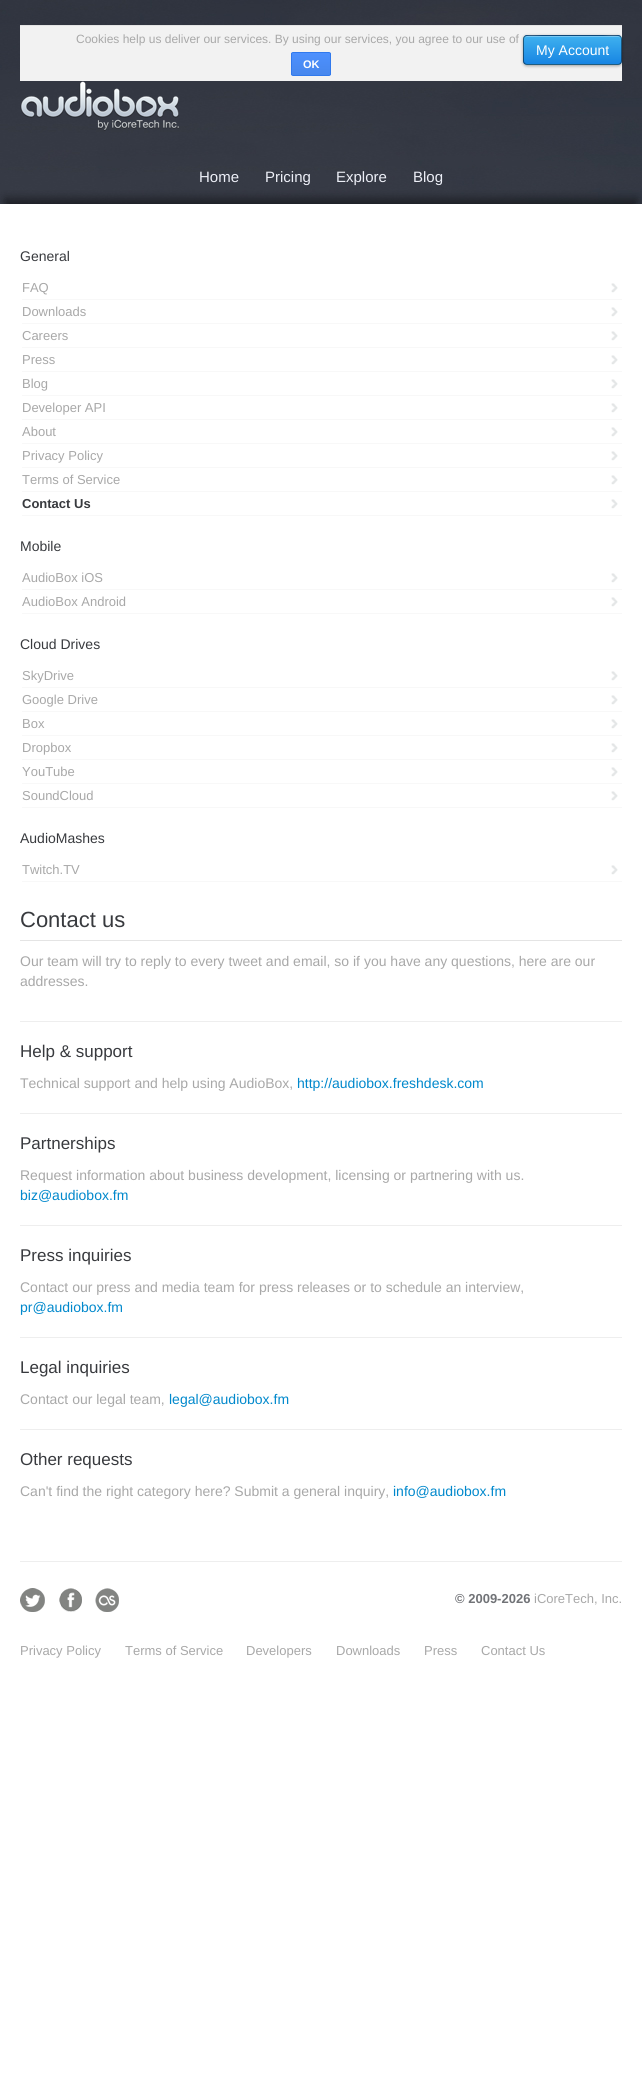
import math
import cairo

surface = cairo.ImageSurface(cairo.FORMAT_RGB24, 642, 2073)
c = cairo.Context(surface)
options = cairo.FontOptions()
options.set_hint_metrics(cairo.HINT_METRICS_OFF)
options.set_hint_style(cairo.HINT_STYLE_NONE)
c.set_font_options(options)
c.set_miter_limit(4)
def C(code):
 c.set_source_rgb(*(v / 255 for v in bytes.fromhex(code[-6:])))
def F(family, size, italic, bold):
 c.select_font_face(family, cairo.FONT_SLANT_ITALIC if italic else cairo.FONT_SLANT_NORMAL, cairo.FONT_WEIGHT_BOLD if bold else cairo.FONT_WEIGHT_NORMAL)
 c.set_font_size(size)
def T(x, y, s):
 c.move_to(x, y)
 c.show_text(s)
def R(x, y, w, h):
 c.rectangle(x, y, w, h)
 c.fill()
def Q(x, y, w, h, r):
 c.new_sub_path()
 for i, (u, v) in enumerate([(x + w - r, y + h - r), (x + r, y + h - r), (x + r, y + r), (x + w - r, y + r)]):
  c.arc(u, v, r, i * math.pi / 2, (i + 1) * math.pi / 2)
 c.close_path()
def S(x, y, w, h, r, blur, alpha):
 c.push_group_with_content(cairo.CONTENT_ALPHA)
 c.set_operator(cairo.OPERATOR_SOURCE)
 for i in range(15, -16, -2):
  e = blur * i / 6
  if min(w, h) + 2 * e > 0:
   c.set_source_rgba(0, 0, 0, alpha * math.erfc((i - 1) / 8.5) / 2)
   Q(x - e, y - e, w + 2 * e, h + 2 * e, max(0, min(r + e + blur * .6, min(w, h) / 2 + e)))
   c.fill()
 c.mask(c.pop_group())
def I(path, x, y, w, h):
 c.save()
 c.set_source_surface(cairo.ImageSurface.create_from_png(path), x, y)
 c.rectangle(x, y, w, h)
 c.fill()
 c.restore()
C('ffffff')
c.paint()
I('1.png',0,0,642,204)
C('f2f2f2')
R(20,26,602,55)
C('e4e4e4')
R(20,25,602,1)
F('Liberation Sans',12,0,0)
C('a8a8a8')
T(76,43,'Cookies help us deliver our services. By using our services, you agree to our use of')
c.save()
Q(291,52,40,24,2)
c.clip()
gradient = cairo.LinearGradient(311,53,311,75)
gradient.add_color_stop_rgba(0,0.302,0.565,0.996,1)
gradient.add_color_stop_rgba(1,0.278,0.529,0.929,1)
c.set_source(gradient)
R(291,53,40,22)
c.restore()
Q(291.5,52.5,39,23,1.5)
C('3079ed')
c.set_line_width(1)
c.stroke()
F('Liberation Sans',11,0,1)
C('ffffff')
T(303,68,'OK')
I('2.png',20,81,159,50)
C('010101')
S(523,36,99,30,4,1.5,.33)
c.save()
Q(523,35,99,30,4)
c.clip()
gradient = cairo.LinearGradient(573,36,573,8)
gradient.add_color_stop_rgba(0,0.09,0.522,0.89,1)
gradient.add_color_stop_rgba(1,0.247,0.694,0.937,1)
c.set_source(gradient)
R(523,35,99,1)
gradient = cairo.LinearGradient(573,64,573,36)
gradient.add_color_stop_rgba(0,0.09,0.522,0.89,1)
gradient.add_color_stop_rgba(1,0.247,0.694,0.937,1)
c.set_source(gradient)
R(523,36,99,28)
gradient = cairo.LinearGradient(573,92,573,64)
gradient.add_color_stop_rgba(0,0.09,0.522,0.89,1)
gradient.add_color_stop_rgba(1,0.247,0.694,0.937,1)
c.set_source(gradient)
R(523,64,99,1)
c.restore()
c.set_source_rgba(1,1,1,0.3)
c.new_path()
c.move_to(527,37)
c.line_to(618,37)
c.curve_to(620,37,621,38,621,40)
c.curve_to(621,32,606,36,603,36)
c.line_to(542,36)
c.curve_to(539,36,524,32,524,40)
c.curve_to(524,38,525,37,527,37)
c.close_path()
c.fill()
Q(523.5,35.5,98,29,3.5)
c.set_source_rgba(0,0,0,0.47)
c.stroke()
F('Liberation Sans',14,0,0)
C('ffffff')
T(536,55,'My Account')
F('Liberation Sans',15,0,0)
C('edeff7')
T(199,182,'Home')
T(265,182,'Pricing')
T(336,182,'Explore')
T(413,182,'Blog')
c.save()
c.rectangle(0,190,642,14)
c.clip()
C('000000')
S(5,199,632,1297,0,5,.5)
c.restore()
F('Liberation Sans',14,0,0)
C('383a3e')
T(20,261,'General')
I('3.png',611,283,7,10)
C('f8f8f8')
R(22,299,600,1)
F('Liberation Sans',13,0,0)
C('a8a8a8')
T(22,292,'FAQ')
I('3.png',611,307,7,10)
C('f8f8f8')
R(22,323,600,1)
C('a8a8a8')
T(22,316,'Downloads')
I('3.png',611,331,7,10)
C('f8f8f8')
R(22,347,600,1)
C('a8a8a8')
T(22,340,'Careers')
I('3.png',611,355,7,10)
C('f8f8f8')
R(22,371,600,1)
C('a8a8a8')
T(22,364,'Press')
I('3.png',611,379,7,10)
C('f8f8f8')
R(22,395,600,1)
C('a8a8a8')
T(22,388,'Blog')
I('3.png',611,403,7,10)
C('f8f8f8')
R(22,419,600,1)
C('a8a8a8')
T(22,412,'Developer API')
I('3.png',611,427,7,10)
C('f8f8f8')
R(22,443,600,1)
C('a8a8a8')
T(22,436,'About')
I('3.png',611,451,7,10)
C('f8f8f8')
R(22,467,600,1)
C('a8a8a8')
T(22,460,'Privacy Policy')
I('3.png',611,475,7,10)
C('f8f8f8')
R(22,491,600,1)
C('a8a8a8')
T(22,484,'Terms of Service')
I('3.png',611,499,7,10)
C('f8f8f8')
R(22,515,600,1)
F('Liberation Sans',13,0,1)
C('383a3e')
T(22,508,'Contact Us')
F('Liberation Sans',14,0,0)
T(20,551,'Mobile')
I('3.png',611,573,7,10)
C('f8f8f8')
R(22,589,600,1)
F('Liberation Sans',13,0,0)
C('a8a8a8')
T(22,582,'AudioBox iOS')
I('3.png',611,597,7,10)
C('f8f8f8')
R(22,613,600,1)
C('a8a8a8')
T(22,606,'AudioBox Android')
F('Liberation Sans',14,0,0)
C('383a3e')
T(20,649,'Cloud Drives')
I('3.png',611,671,7,10)
C('f8f8f8')
R(22,687,600,1)
F('Liberation Sans',13,0,0)
C('a8a8a8')
T(22,680,'SkyDrive')
I('3.png',611,695,7,10)
C('f8f8f8')
R(22,711,600,1)
C('a8a8a8')
T(22,704,'Google Drive')
I('3.png',611,719,7,10)
C('f8f8f8')
R(22,735,600,1)
C('a8a8a8')
T(22,728,'Box')
I('3.png',611,743,7,10)
C('f8f8f8')
R(22,759,600,1)
C('a8a8a8')
T(22,752,'Dropbox')
I('3.png',611,767,7,10)
C('f8f8f8')
R(22,783,600,1)
C('a8a8a8')
T(22,776,'YouTube')
I('3.png',611,791,7,10)
C('f8f8f8')
R(22,807,600,1)
C('a8a8a8')
T(22,800,'SoundCloud')
F('Liberation Sans',14,0,0)
C('383a3e')
T(20,843,'AudioMashes')
I('3.png',611,865,7,10)
C('f8f8f8')
R(22,881,600,1)
F('Liberation Sans',13,0,0)
C('a8a8a8')
T(22,874,'Twitch.TV')
C('e4e4e4')
R(20,940,602,1)
F('Liberation Sans',22,0,0)
C('383a3e')
T(20,927,'Contact us')
F('Liberation Sans',14,0,0)
C('a8a8a8')
T(20,966,'Our team will try to reply to every tweet and email, so if you have any questions, here are our')
T(20,986,'addresses.')
C('eeeeee')
R(20,1021,602,1)
F('Liberation Sans',17,0,0)
C('383a3e')
T(20,1057,'Help & support')
F('Liberation Sans',14,0,0)
C('a8a8a8')
T(20,1088,'Technical support and help using AudioBox,')
C('0088cc')
T(297,1088,'http://audiobox.freshdesk.com')
C('eeeeee')
R(20,1113,602,1)
F('Liberation Sans',17,0,0)
C('383a3e')
T(20,1149,'Partnerships')
F('Liberation Sans',14,0,0)
C('a8a8a8')
T(20,1180,'Request information about business development, licensing or partnering with us.')
C('0088cc')
T(20,1200,'biz@audiobox.fm')
C('eeeeee')
R(20,1225,602,1)
F('Liberation Sans',17,0,0)
C('383a3e')
T(20,1261,'Press inquiries')
F('Liberation Sans',14,0,0)
C('a8a8a8')
T(20,1292,'Contact our press and media team for press releases or to schedule an interview,')
C('0088cc')
T(20,1312,'pr@audiobox.fm')
C('eeeeee')
R(20,1337,602,1)
F('Liberation Sans',17,0,0)
C('383a3e')
T(20,1373,'Legal inquiries')
F('Liberation Sans',14,0,0)
C('a8a8a8')
T(20,1404,'Contact our legal team,')
C('0088cc')
T(169,1404,'legal@audiobox.fm')
C('eeeeee')
R(20,1429,602,1)
F('Liberation Sans',17,0,0)
C('383a3e')
T(20,1465,'Other requests')
F('Liberation Sans',14,0,0)
C('a8a8a8')
T(20,1496,'Can\'t find the right category here? Submit a general inquiry,')
C('0088cc')
T(393,1496,'info@audiobox.fm')
C('eeeeee')
R(20,1561,602,1)
I('4.png',20,1588,25,24)
I('5.png',59,1588,23,24)
I('6.png',95,1588,24,24)
F('Liberation Sans',13,0,1)
C('717377')
T(455,1603,'© 2009-2026')
F('Liberation Sans',13,0,0)
C('a8a8a8')
T(534,1603,'iCoreTech, Inc.')
T(20,1655,'Privacy Policy')
T(125,1655,'Terms of Service')
T(246,1655,'Developers')
T(336,1655,'Downloads')
T(424,1655,'Press')
T(481,1655,'Contact Us')
surface.write_to_png('o.png')
